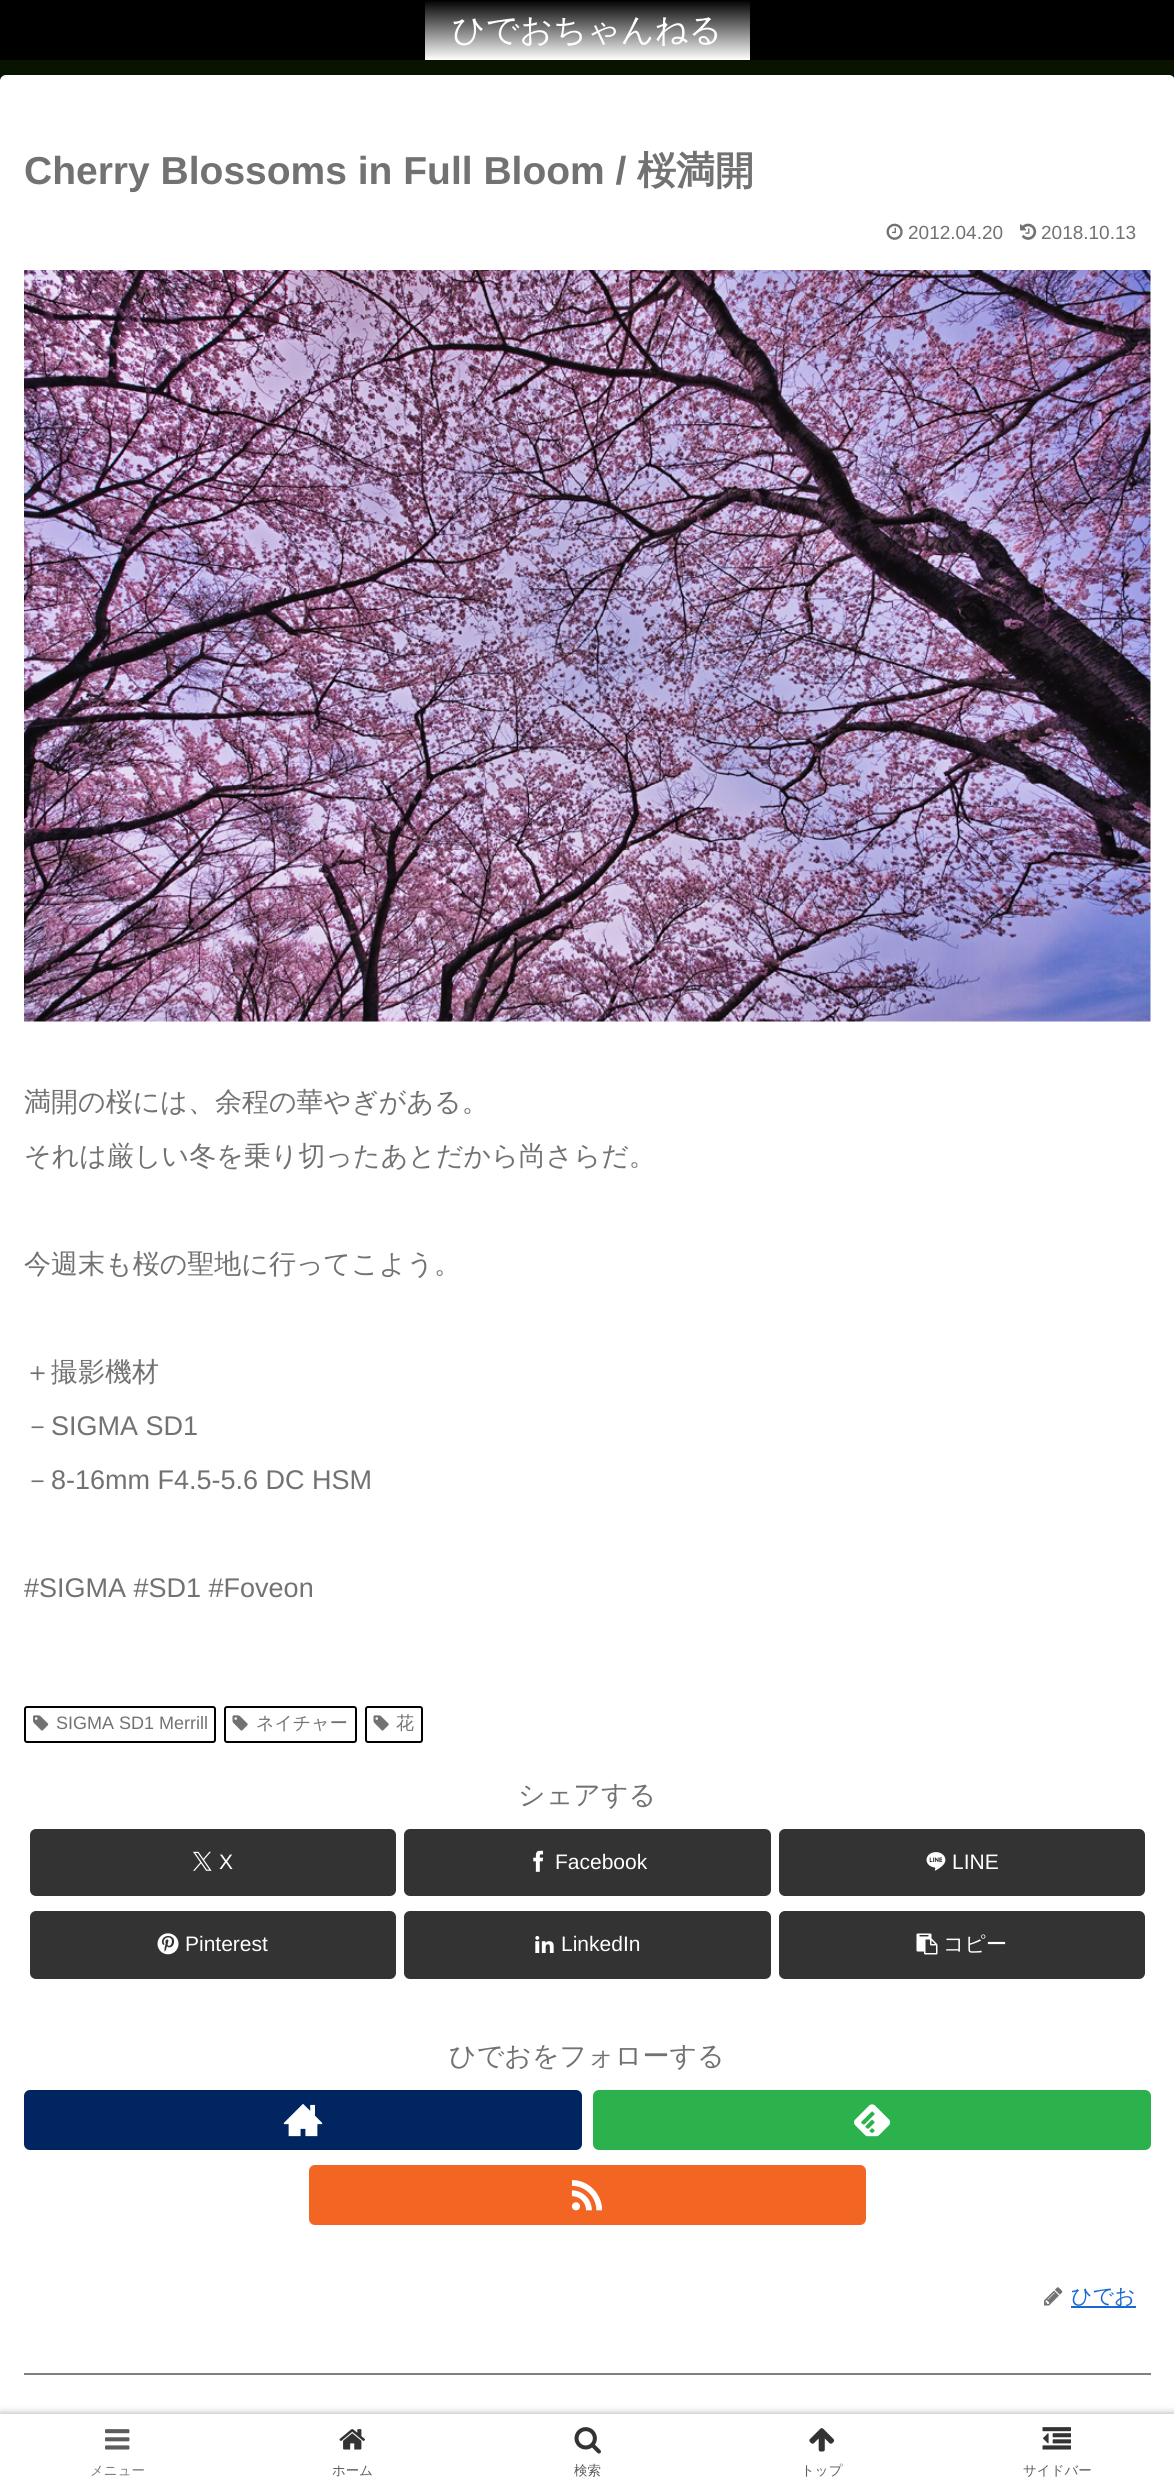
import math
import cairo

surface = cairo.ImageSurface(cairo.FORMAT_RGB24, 1174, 2488)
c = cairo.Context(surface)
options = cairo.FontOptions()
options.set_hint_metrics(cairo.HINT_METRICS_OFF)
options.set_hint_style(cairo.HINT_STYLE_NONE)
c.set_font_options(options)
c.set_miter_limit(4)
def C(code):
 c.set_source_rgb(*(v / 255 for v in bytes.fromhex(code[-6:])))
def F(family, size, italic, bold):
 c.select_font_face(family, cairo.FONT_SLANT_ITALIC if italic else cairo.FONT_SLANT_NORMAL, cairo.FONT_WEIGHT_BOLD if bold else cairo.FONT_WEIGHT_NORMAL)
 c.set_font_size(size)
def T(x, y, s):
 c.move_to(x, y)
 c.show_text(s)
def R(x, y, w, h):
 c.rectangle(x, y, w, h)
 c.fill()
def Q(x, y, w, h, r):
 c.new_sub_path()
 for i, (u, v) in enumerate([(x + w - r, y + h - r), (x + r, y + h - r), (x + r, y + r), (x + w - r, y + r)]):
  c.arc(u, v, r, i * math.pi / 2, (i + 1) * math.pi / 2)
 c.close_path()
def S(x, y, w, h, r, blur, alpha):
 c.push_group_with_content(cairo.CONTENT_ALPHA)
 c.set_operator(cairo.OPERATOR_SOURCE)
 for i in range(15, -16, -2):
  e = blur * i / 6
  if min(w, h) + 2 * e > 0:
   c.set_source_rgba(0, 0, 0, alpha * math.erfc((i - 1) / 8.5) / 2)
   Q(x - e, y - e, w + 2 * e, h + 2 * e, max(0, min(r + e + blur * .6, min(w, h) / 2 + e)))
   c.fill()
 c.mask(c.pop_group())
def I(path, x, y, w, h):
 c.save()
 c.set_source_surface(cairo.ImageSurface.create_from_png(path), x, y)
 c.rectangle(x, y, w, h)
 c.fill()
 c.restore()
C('081400')
c.paint()
C('000000')
R(0,0,1174,60)
gradient = cairo.LinearGradient(587,0,587,60)
gradient.add_color_stop_rgba(0,0,0,0,1)
gradient.add_color_stop_rgba(1,1,1,1,1)
c.set_source(gradient)
R(425,1,325,59)
F('WenQuanYi Zen Hei Medium',33,0,0)
C('ffffff')
T(452,41,'ひでおちゃんねる')
Q(0,75,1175,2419,6)
c.fill()
F('Liberation Sans',39,0,1)
C('727272')
T(24,184,'Cherry Blossoms in Full Bloom /')
F('WenQuanYi Zen Hei',39,0,1)
T(637,184,'桜満開')
I('1.png',886,223,17,17)
F('Liberation Sans',19,0,0)
T(908,239,'2012.04.20')
I('2.png',1020,223,17,17)
T(1041,239,'2018.10.13')
I('3.png',24,270,1127,752)
F('WenQuanYi Zen Hei Medium',27,0,0)
T(24,1111,'満開の桜には、余程の華やぎがある。')
T(24,1165,'それは厳しい冬を乗り切ったあとだから尚さらだ。')
T(24,1273,'今週末も桜の聖地に行ってこよう。')
T(24,1381,'＋撮影機材')
T(24,1435,'－')
F('Liberation Sans',27,0,0)
T(51,1435,'SIGMA SD1')
F('WenQuanYi Zen Hei Medium',27,0,0)
T(24,1489,'－')
F('Liberation Sans',27,0,0)
T(51,1489,'8-16mm F4.5-5.6 DC HSM')
T(24,1597,'#SIGMA #SD1 #Foveon')
Q(25,1707,190,35,2)
C('000000')
c.stroke()
I('4.png',33,1715,16,16)
F('Liberation Sans',18,0,0)
C('727272')
T(56,1729,'SIGMA SD1 Merrill')
Q(225,1707,131,35,2)
C('000000')
c.stroke()
I('5.png',232,1715,16,16)
F('WenQuanYi Zen Hei Medium',18,0,0)
C('727272')
T(256,1729,'ネイチャー')
Q(366,1707,56,35,2)
C('000000')
c.stroke()
I('5.png',373,1715,16,16)
C('727272')
T(396,1729,'花')
F('WenQuanYi Zen Hei Medium',27,0,0)
T(518,1804,'シェアする')
C('333333')
Q(30,1829,366,67,6)
c.fill()
I('6.png',193,1851,19,20)
F('Liberation Sans',21,0,0)
C('ffffff')
T(219,1869,'X')
C('333333')
Q(404,1829,367,67,6)
c.fill()
I('7.png',533,1850,11,22)
C('ffffff')
T(555,1869,'Facebook')
C('333333')
Q(779,1829,366,67,6)
c.fill()
I('8.png',926,1852,20,19)
C('ffffff')
T(952,1869,'LINE')
C('333333')
Q(30,1911,366,68,6)
c.fill()
I('9.png',157,1933,22,22)
C('ffffff')
T(185,1951,'Pinterest')
C('333333')
Q(404,1911,367,68,6)
c.fill()
I('10.png',535,1936,19,17)
C('ffffff')
T(561,1951,'LinkedIn')
C('333333')
Q(779,1911,366,68,6)
c.fill()
I('11.png',916,1933,22,22)
F('WenQuanYi Zen Hei Medium',21,0,0)
C('ffffff')
T(943,1951,'コピー')
F('WenQuanYi Zen Hei Medium',27,0,0)
C('727272')
T(449,2065,'ひでおをフォローする')
C('002561')
Q(24,2090,558,60,6)
c.fill()
I('12.png',283,2103,40,34)
C('2bb24c')
Q(593,2090,558,60,6)
c.fill()
I('13.png',854,2104,37,33)
C('f26522')
Q(309,2165,557,60,6)
c.fill()
I('14.png',571,2180,32,31)
I('15.png',1044,2287,19,19)
C('1967d2')
R(1071,2306,65,2)
F('WenQuanYi Zen Hei Medium',21,0,0)
T(1071,2303,'ひでお')
C('808080')
R(24,2373,1127,2)
C('a9a9a9')
S(0,2414,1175,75,0,4,1)
C('ffffff')
R(0,2414,1174,74)
I('16.png',105,2429,25,21)
F('WenQuanYi Zen Hei Medium',13.5,0,0)
C('7c7c7c')
T(90,2475,'メニュー')
I('17.png',339,2429,26,21)
C('5c5c5c')
T(332,2475,'ホーム')
I('18.png',574,2427,27,27)
T(574,2475,'検索')
I('19.png',809,2428,26,24)
T(801,2475,'トップ')
I('20.png',1042,2427,29,23)
T(1023,2475,'サイドバー')
surface.write_to_png('o.png')
